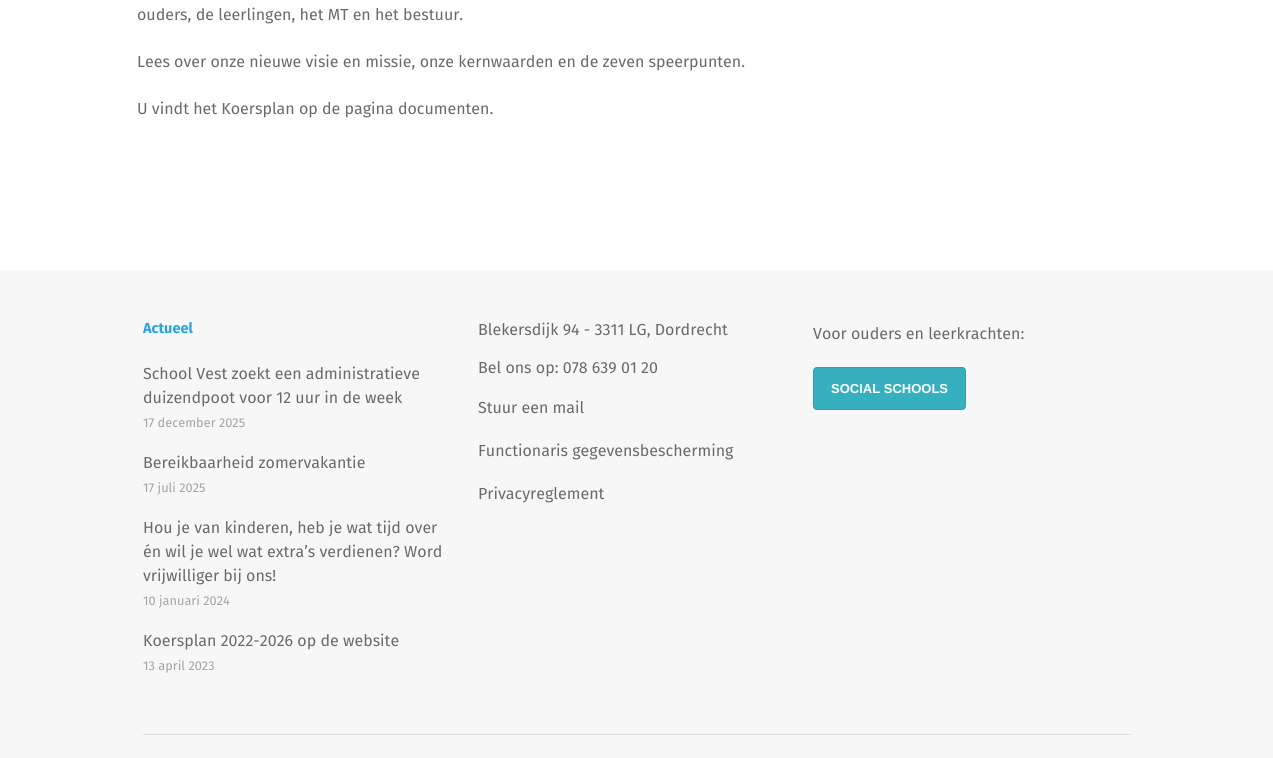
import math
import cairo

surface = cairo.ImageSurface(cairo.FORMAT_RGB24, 1273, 758)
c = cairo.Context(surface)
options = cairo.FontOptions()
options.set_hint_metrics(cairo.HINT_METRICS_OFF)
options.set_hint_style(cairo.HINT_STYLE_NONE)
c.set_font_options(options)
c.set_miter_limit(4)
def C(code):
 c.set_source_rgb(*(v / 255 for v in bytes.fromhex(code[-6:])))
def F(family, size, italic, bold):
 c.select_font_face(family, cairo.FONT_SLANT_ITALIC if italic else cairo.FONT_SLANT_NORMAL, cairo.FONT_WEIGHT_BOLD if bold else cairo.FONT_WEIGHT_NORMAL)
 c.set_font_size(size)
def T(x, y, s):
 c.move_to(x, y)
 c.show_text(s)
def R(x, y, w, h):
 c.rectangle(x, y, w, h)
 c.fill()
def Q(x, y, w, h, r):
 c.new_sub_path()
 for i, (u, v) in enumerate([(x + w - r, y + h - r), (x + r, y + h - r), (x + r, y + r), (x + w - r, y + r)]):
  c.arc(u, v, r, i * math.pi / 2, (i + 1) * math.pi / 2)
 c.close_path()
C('f7f7f7')
c.paint()
C('ffffff')
R(0,0,1273,270)
F('Fira Sans',16,0,0)
C('6a6a6a')
T(137,20,'ouders, de leerlingen, het MT en het bestuur.')
T(137,67,'Lees over onze nieuwe visie en missie, onze kernwaarden en de zeven speerpunten.')
T(137,114,'U vindt het Koersplan op de pagina documenten.')
F('Fira Sans',14.5,0,1)
C('2aa3dc')
T(143,333,'Actueel')
F('Fira Sans',16,0,0)
C('6a6a6a')
T(143,379,'School Vest zoekt een administratieve')
T(143,403,'duizendpoot voor 12 uur in de week')
F('Fira Sans',12.75,0,0)
C('a3a3a3')
T(143,427,'17 december 2025')
F('Fira Sans',16,0,0)
C('6a6a6a')
T(143,468,'Bereikbaarheid zomervakantie')
F('Fira Sans',12.75,0,0)
C('a3a3a3')
T(143,492,'17 juli 2025')
F('Fira Sans',16,0,0)
C('6a6a6a')
T(143,533,'Hou je van kinderen, heb je wat tijd over')
T(143,557,'én wil je wel wat extra’s verdienen? Word')
T(143,581,'vrijwilliger bij ons!')
F('Fira Sans',12.75,0,0)
C('a3a3a3')
T(143,605,'10 januari 2024')
F('Fira Sans',16,0,0)
C('6a6a6a')
T(143,646,'Koersplan 2022-2026 op de website')
F('Fira Sans',12.75,0,0)
C('a3a3a3')
T(143,670,'13 april 2023')
F('Fira Sans',16,0,0)
C('6a6a6a')
T(478,335,'Blekersdijk 94 - 3311 LG, Dordrecht')
T(478,373,'Bel ons op: 078 639 01 20')
T(478,413,'Stuur een mail')
T(478,456,'Functionaris gegevensbescherming')
T(478,499,'Privacyreglement')
T(813,339,'Voor ouders en leerkrachten:')
C('36b0be')
Q(813,367,153,43,4)
c.fill()
Q(813.5,367.5,152,42,3.5)
c.set_source_rgba(0,0,0,0.1)
c.set_line_width(1)
c.stroke()
F('Liberation Sans',13,0,1)
C('ffffff')
T(831,393,'SOCIAL SCHOOLS')
C('e3e0db')
R(143,734,988,1)
surface.write_to_png('o.png')
